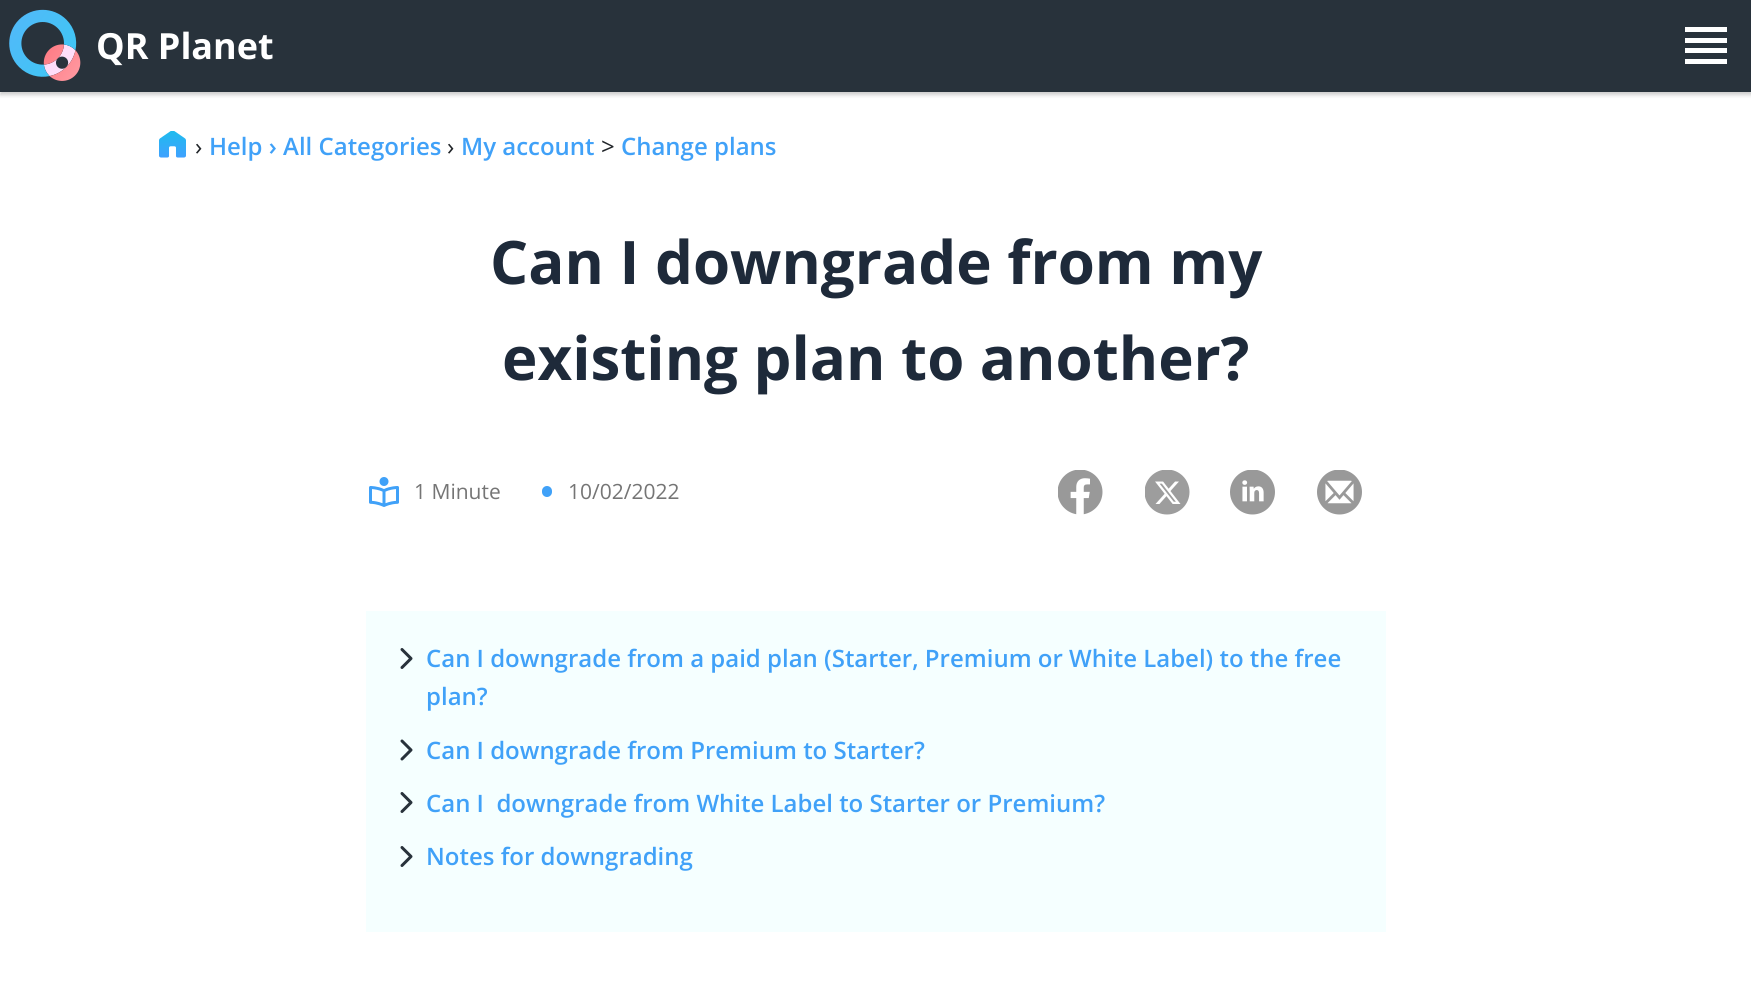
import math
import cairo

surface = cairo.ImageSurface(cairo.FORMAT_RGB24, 1751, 1001)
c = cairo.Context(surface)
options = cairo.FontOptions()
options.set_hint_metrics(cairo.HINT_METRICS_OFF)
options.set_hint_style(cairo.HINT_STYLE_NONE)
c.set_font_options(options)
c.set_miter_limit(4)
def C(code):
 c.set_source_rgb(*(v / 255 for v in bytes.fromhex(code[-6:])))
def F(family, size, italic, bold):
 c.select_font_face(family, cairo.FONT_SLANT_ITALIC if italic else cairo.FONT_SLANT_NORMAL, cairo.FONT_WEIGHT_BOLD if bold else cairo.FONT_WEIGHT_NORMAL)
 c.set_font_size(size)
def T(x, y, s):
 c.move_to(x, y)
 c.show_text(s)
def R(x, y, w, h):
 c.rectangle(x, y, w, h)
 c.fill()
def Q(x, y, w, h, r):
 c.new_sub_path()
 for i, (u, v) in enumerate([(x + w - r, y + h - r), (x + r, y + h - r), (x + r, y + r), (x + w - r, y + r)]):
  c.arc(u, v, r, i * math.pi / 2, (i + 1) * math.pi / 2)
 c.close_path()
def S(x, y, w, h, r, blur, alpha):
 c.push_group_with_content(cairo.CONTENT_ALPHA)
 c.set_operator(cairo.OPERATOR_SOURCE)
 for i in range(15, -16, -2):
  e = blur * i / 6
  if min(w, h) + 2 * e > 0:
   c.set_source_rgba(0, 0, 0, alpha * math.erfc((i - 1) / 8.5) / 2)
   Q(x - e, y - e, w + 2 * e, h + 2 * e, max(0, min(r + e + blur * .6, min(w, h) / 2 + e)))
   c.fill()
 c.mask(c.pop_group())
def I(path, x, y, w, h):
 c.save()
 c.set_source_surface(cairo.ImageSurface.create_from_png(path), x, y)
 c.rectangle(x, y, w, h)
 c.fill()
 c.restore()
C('ffffff')
c.paint()
C('000000')
S(0,3,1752,92,0,2,.2)
C('28323b')
R(0,0,1751,92)
I('1.png',9,9,72,72)
F('Open Sans',36,0,1)
C('ffffff')
T(96,59,'QR Planet')
R(1685,27,42,5)
R(1685,38,42,5)
R(1685,48,42,5)
R(1685,59,42,5)
I('2.png',159,131,27,27)
F('Open Sans',24,0,0)
C('212529')
T(195,155,'›')
F('Open Sans SemiBold',24,0,0)
C('40a1f8')
T(209,155,'Help › All Categories')
F('Open Sans',24,0,0)
C('212529')
T(447,155,'›')
F('Open Sans SemiBold',24,0,0)
C('40a1f8')
T(461,155,'My account')
F('Open Sans',24,0,0)
C('212529')
T(601,155,'>')
F('Open Sans SemiBold',24,0,0)
C('40a1f8')
T(621,155,'Change plans')
F('Open Sans',60,0,1)
C('1e2a3a')
T(490,284,'Can I downgrade from my')
T(502,380,'existing plan to another?')
I('3.png',369,477,30,30)
F('Open Sans',21,0,0)
C('757575')
T(414,499,'1 Minute')
C('40a1f8')
Q(542,486,10,11,5)
c.fill()
C('757575')
T(568,499,'10/02/2022')
I('4.png',1058,470,45,45)
I('5.png',1145,470,45,45)
I('6.png',1230,470,45,45)
I('7.png',1317,470,45,45)
C('f5ffff')
R(366,611,1020,321)
c.new_path()
c.move_to(402,667.5)
c.line_to(411,658.5)
c.line_to(402,649.5)
C('28323b')
c.set_line_width(3)
c.set_line_cap(cairo.LINE_CAP_ROUND)
c.set_line_join(cairo.LINE_JOIN_ROUND)
c.stroke()
F('Open Sans SemiBold',24,0,0)
C('40a1f8')
T(426,667,'Can I downgrade from a paid plan (Starter, Premium or White Label) to the free')
T(426,705,'plan?')
c.new_path()
c.move_to(402,759)
c.line_to(411,750)
c.line_to(402,741)
C('28323b')
c.stroke()
C('40a1f8')
T(426,759,'Can I downgrade from Premium to Starter?')
c.new_path()
c.move_to(402,811.5)
c.line_to(411,802.5)
c.line_to(402,793.5)
C('28323b')
c.stroke()
C('40a1f8')
T(426,812,'Can I  downgrade from White Label to Starter or Premium?')
c.new_path()
c.move_to(402,865.5)
c.line_to(411,856.5)
c.line_to(402,847.5)
C('28323b')
c.stroke()
C('40a1f8')
T(426,865,'Notes for downgrading')
surface.write_to_png('o.png')
